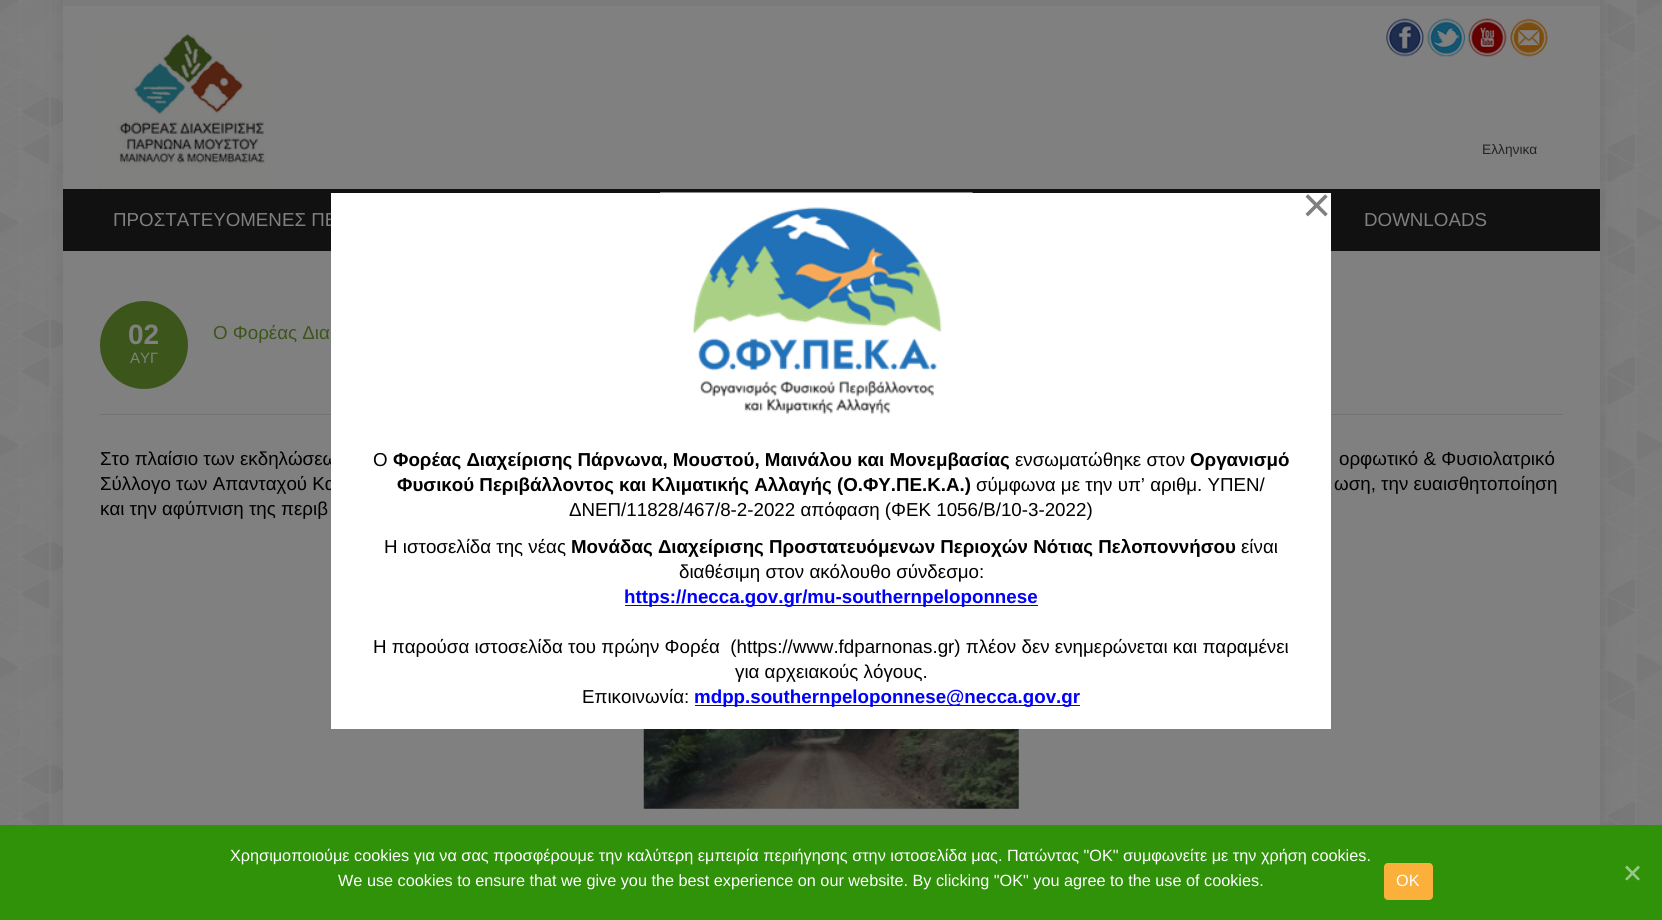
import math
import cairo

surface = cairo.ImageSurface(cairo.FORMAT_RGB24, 1662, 920)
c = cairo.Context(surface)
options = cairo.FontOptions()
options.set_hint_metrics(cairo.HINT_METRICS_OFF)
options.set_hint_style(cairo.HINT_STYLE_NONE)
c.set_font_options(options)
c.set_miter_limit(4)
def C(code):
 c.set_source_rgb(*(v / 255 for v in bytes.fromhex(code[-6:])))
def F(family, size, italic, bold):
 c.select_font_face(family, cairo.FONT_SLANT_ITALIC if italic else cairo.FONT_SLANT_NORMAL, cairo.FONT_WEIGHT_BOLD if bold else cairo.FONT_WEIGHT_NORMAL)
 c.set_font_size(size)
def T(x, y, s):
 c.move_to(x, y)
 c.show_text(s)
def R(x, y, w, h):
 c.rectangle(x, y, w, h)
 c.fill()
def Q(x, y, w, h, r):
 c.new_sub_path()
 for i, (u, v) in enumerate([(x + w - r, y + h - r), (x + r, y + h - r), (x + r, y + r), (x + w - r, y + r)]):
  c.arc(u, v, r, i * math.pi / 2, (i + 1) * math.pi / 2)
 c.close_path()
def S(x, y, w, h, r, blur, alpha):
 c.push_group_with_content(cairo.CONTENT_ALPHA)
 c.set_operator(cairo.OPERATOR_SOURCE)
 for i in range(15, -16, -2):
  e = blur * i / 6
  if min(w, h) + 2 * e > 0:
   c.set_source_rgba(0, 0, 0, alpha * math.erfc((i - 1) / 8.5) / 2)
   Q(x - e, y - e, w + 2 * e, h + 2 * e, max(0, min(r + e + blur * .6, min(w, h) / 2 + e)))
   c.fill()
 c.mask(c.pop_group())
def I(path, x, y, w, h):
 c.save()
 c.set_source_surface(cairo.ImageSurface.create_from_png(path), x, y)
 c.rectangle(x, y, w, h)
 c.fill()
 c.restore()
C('ffffff')
c.paint()
I('1.png',0,0,1662,825)
C('000000')
S(63,0,1537,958,0,12.5,.09)
C('808080')
R(63,6,1537,183)
C('7b7b7b')
R(63,0,1537,6)
I('2.png',100,33,165,156)
I('3.png',1386,18,38,39)
I('4.png',1427,18,38,39)
I('5.png',1468,18,39,39)
I('6.png',1510,18,38,39)
F('Liberation Sans',13.75,0,0)
C('222222')
T(1482,154,'Ελληνικα')
C('111111')
R(63,189,1537,62)
F('Liberation Sans',18.75,0,0)
C('808080')
T(113,226,'ΠΡΟΣΤΑΤΕΥΟΜΕΝΕΣ ΠΕ')
T(1364,226,'DOWNLOADS')
R(63,251,1537,574)
C('737373')
R(100,414,1463,1)
C('3b551a')
c.new_path()
c.arc(144,345,44,0,2 * math.pi)
c.fill()
F('Liberation Sans',28,0,1)
C('808080')
T(128,344,'02')
F('Liberation Sans',15,0,0)
T(130,363,'ΑΥΓ')
F('Liberation Sans',18.75,0,0)
C('3b551a')
T(213,339,'Ο Φορέας Δια')
C('000000')
T(100,465,'Στο πλαίσιο των εκδηλώσεω')
T(1339,465,'ορφωτικό & Φυσιολατρικό')
T(100,490,'Σύλλογο των Απανταχού Κα')
T(1334,490,'ωση, την ευαισθητοποίηση')
T(100,515,'και την αφύπνιση της περιβ')
I('7.png',643,729,376,80)
C('ffffff')
R(331,193,1000,536)
I('8.png',660,192,313,222)
F('Liberation Sans',50,0,0)
C('808080')
T(1302,222,'×')
F('Liberation Sans',18.75,0,0)
C('000000')
T(373,466,'O')
F('Liberation Sans',18.75,0,1)
T(393,466,'Φορέας Διαχείρισης Πάρνωνα, Μουστού, Μαινάλου και Μονεμβασίας')
F('Liberation Sans',18.75,0,0)
T(1015,466,'ενσωματώθηκε στον')
F('Liberation Sans',18.75,0,1)
T(1190,466,'Οργανισμό')
T(397,491,'Φυσικού Περιβάλλοντος και Κλιματικής Αλλαγής (Ο.ΦΥ.ΠΕ.Κ.Α.)')
F('Liberation Sans',18.75,0,0)
T(976,491,'σύμφωνα με την υπ’ αριθμ. ΥΠΕΝ/')
T(569,516,'ΔΝΕΠ/11828/467/8-2-2022 απόφαση (ΦΕΚ 1056/Β/10-3-2022)')
T(384,553,'Η ιστοσελίδα της νέας')
F('Liberation Sans',18.75,0,1)
T(571,553,'Μονάδας Διαχείρισης Προστατευόμενων Περιοχών Νότιας Πελοποννήσου')
F('Liberation Sans',18.75,0,0)
T(1241,553,'είναι')
T(679,578,'διαθέσιμη στον ακόλουθο σύνδεσμο:')
C('0000ff')
R(625,605,413,1)
F('Liberation Sans',18.75,0,1)
T(624,603,'https://necca.gov.gr/mu-southernpeloponnese')
F('Liberation Sans',18.75,0,0)
C('000000')
T(373,653,'Η παρούσα ιστοσελίδα του πρώην Φορέα  (https://www.fdparnonas.gr) πλέον δεν ενημερώνεται και παραμένει')
T(735,678,'για αρχειακούς λόγους.')
T(582,703,'Επικοινωνία:')
C('0000ff')
R(695,705,385,1)
F('Liberation Sans',18.75,0,1)
T(694,703,'mdpp.southernpeloponnese@necca.gov.gr')
C('2f9209')
R(0,825,1662,95)
F('Liberation Sans',16.25,0,0)
C('ffffff')
T(230,861,'Χρησιμοποιούμε cookies για να σας προσφέρουμε την καλύτερη εμπειρία περιήγησης στην ιστοσελίδα μας. Πατώντας "ΟΚ" συμφωνείτε με την χρήση cookies.')
T(338,886,'We use cookies to ensure that we give you the best experience on our website. By clicking "OK" you agree to the use of cookies.')
C('fbb03b')
Q(1384,863,49,37,4)
c.fill()
C('ffffff')
T(1396,886,'OK')
C('97c984')
c.new_path()
c.move_to(1638,865.5)
c.line_to(1640,867.5)
c.line_to(1627,880.5)
c.line_to(1625,879)
c.close_path()
c.fill()
c.new_path()
c.move_to(1625,867.5)
c.line_to(1627,865.5)
c.line_to(1640,879)
c.line_to(1638,880.5)
c.close_path()
c.fill()
surface.write_to_png('o.png')
